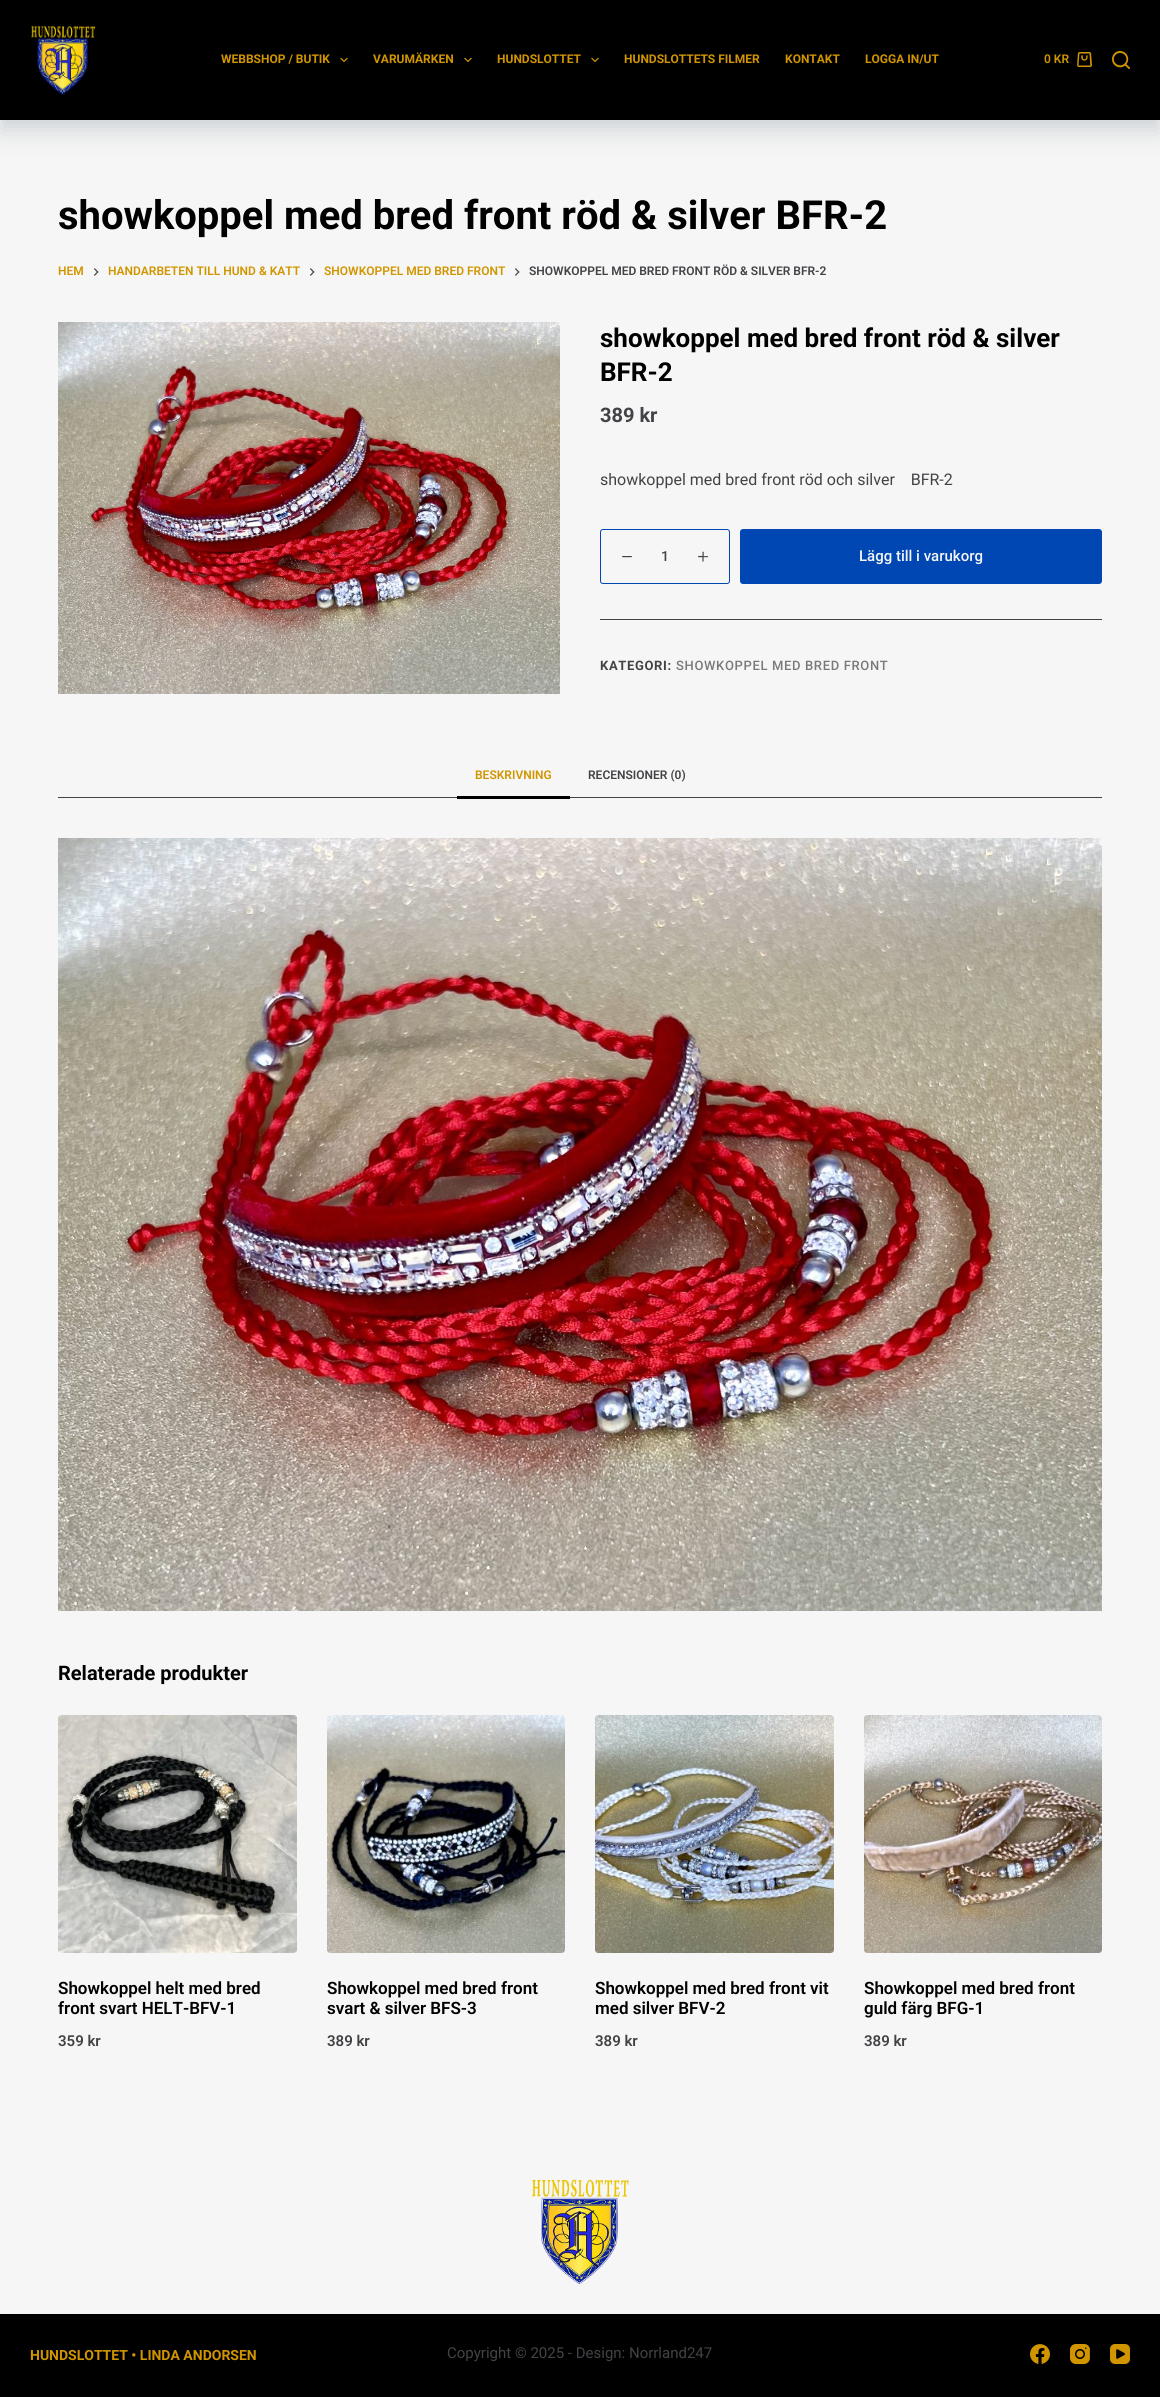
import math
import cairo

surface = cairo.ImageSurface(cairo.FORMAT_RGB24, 1160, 2397)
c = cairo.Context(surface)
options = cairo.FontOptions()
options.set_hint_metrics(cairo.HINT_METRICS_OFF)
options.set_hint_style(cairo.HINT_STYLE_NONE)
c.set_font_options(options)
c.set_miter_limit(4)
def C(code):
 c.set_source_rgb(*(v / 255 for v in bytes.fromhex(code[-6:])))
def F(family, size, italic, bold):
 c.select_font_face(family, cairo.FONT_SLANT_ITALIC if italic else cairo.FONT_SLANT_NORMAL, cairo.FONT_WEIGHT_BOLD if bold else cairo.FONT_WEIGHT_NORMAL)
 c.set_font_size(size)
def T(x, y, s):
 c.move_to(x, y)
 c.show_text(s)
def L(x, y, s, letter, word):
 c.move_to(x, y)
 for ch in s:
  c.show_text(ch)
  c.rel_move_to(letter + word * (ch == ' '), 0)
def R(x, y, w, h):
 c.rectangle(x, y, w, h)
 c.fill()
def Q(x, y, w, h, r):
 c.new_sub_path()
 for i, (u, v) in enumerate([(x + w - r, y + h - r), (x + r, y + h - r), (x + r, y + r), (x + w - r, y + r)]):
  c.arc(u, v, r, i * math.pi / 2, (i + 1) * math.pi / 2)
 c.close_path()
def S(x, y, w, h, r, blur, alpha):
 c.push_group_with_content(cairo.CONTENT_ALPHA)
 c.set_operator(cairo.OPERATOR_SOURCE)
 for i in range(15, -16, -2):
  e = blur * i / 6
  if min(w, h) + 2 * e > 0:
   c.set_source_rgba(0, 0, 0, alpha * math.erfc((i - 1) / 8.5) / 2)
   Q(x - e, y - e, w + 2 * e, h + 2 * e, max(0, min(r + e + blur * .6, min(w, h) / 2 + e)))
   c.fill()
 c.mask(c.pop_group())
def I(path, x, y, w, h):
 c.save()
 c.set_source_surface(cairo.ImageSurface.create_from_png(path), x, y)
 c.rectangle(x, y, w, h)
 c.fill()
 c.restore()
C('f6f6f6')
c.paint()
C('2b3d4f')
S(0,10,1160,120,0,12.5,.2)
C('000000')
R(0,0,1160,120)
I('1.png',31,26,65,69)
F('Roboto',12,0,1)
C('d19500')
T(221,63,'WEBBSHOP / BUTIK')
I('2.png',340,57,8,6)
T(373,63,'VARUMÄRKEN')
I('2.png',464,57,8,6)
T(497,63,'HUNDSLOTTET')
I('2.png',591,57,8,6)
T(624,63,'HUNDSLOTTETS FILMER')
T(785,63,'KONTAKT')
T(865,63,'LOGGA IN/UT')
F('Roboto SemiBold',12,0,0)
T(1044,63,'0 KR')
I('3.png',1077,52,15,15)
I('4.png',1112,51,18,18)
F('Roboto',40,0,1)
C('000000')
T(58,229,'showkoppel med bred front röd & silver BFR-2')
F('Roboto SemiBold',12,0,0)
C('d19500')
T(58,275,'HEM')
I('5.png',94,268,5,8)
T(108,275,'HANDARBETEN TILL HUND & KATT')
I('5.png',310,268,5,8)
T(324,275,'SHOWKOPPEL MED BRED FRONT')
I('5.png',515,268,5,8)
C('434347')
T(529,275,'SHOWKOPPEL MED BRED FRONT RÖD & SILVER BFR-2')
I('6.png',58,322,502,372)
F('Roboto',26,0,1)
C('000000')
T(600,347,'showkoppel med bred front röd & silver')
T(600,381,'BFR-2')
F('Roboto',20,0,1)
C('434347')
T(600,422,'389 kr')
F('Roboto',16,0,0)
T(600,485,'showkoppel med bred front röd och silver    BFR-2')
Q(600.5,529.5,129,54,2.5)
C('0047b3')
c.set_line_width(1)
c.stroke()
I('7.png',622,556,10,2)
F('Roboto Medium',14,0,0)
C('434347')
T(661,561,'1')
I('8.png',698,551,10,11)
C('0047b3')
Q(740,529,362,55,3)
c.fill()
F('Roboto Medium',15,0,0)
C('f6f6f6')
T(859,561,'Lägg till i varukorg')
C('434347')
R(600,619,502,1)
F('Roboto',13,0,1)
L(600,670,'KATEGORI:',.65,0)
F('Roboto Medium',13,0,0)
C('79797c')
L(676,670,'SHOWKOPPEL MED BRED FRONT',.65,0)
C('434347')
R(58,797,1044,1)
F('Roboto SemiBold',12,0,0)
C('d19500')
T(475,779,'BESKRIVNING')
C('000000')
R(457,796,113,3)
C('434347')
T(588,779,'RECENSIONER (0)')
I('9.png',58,838,1044,773)
F('Roboto',20,0,1)
C('000000')
T(58,1680,'Relaterade produkter')
I('10.png',58,1715,239,238)
F('Roboto SemiBold',17,0,0)
T(58,1994,'Showkoppel helt med bred')
T(58,2014,'front svart HELT-BFV-1')
F('Roboto SemiBold',15,0,0)
C('434347')
T(58,2046,'359 kr')
I('11.png',327,1715,238,238)
F('Roboto SemiBold',17,0,0)
C('000000')
T(327,1994,'Showkoppel med bred front')
T(327,2014,'svart & silver BFS-3')
F('Roboto SemiBold',15,0,0)
C('434347')
T(327,2046,'389 kr')
I('12.png',595,1715,239,238)
F('Roboto SemiBold',17,0,0)
C('000000')
T(595,1994,'Showkoppel med bred front vit')
T(595,2014,'med silver BFV-2')
F('Roboto SemiBold',15,0,0)
C('434347')
T(595,2046,'389 kr')
I('13.png',864,1715,238,238)
F('Roboto SemiBold',17,0,0)
C('000000')
T(864,1994,'Showkoppel med bred front')
T(864,2014,'guld färg BFG-1')
F('Roboto SemiBold',15,0,0)
C('434347')
T(864,2046,'389 kr')
C('000000')
R(0,2314,1160,83)
I('14.png',532,2179,97,105)
F('Roboto',14,0,1)
C('d19500')
T(30,2360,'HUNDSLOTTET • LINDA ANDORSEN')
F('Roboto',15,0,0)
C('434347')
T(447,2358,'Copyright © 2025 - Design: Norrland247')
I('15.png',1030,2344,20,20)
I('16.png',1070,2344,20,20)
I('17.png',1110,2344,20,20)
surface.write_to_png('o.png')
